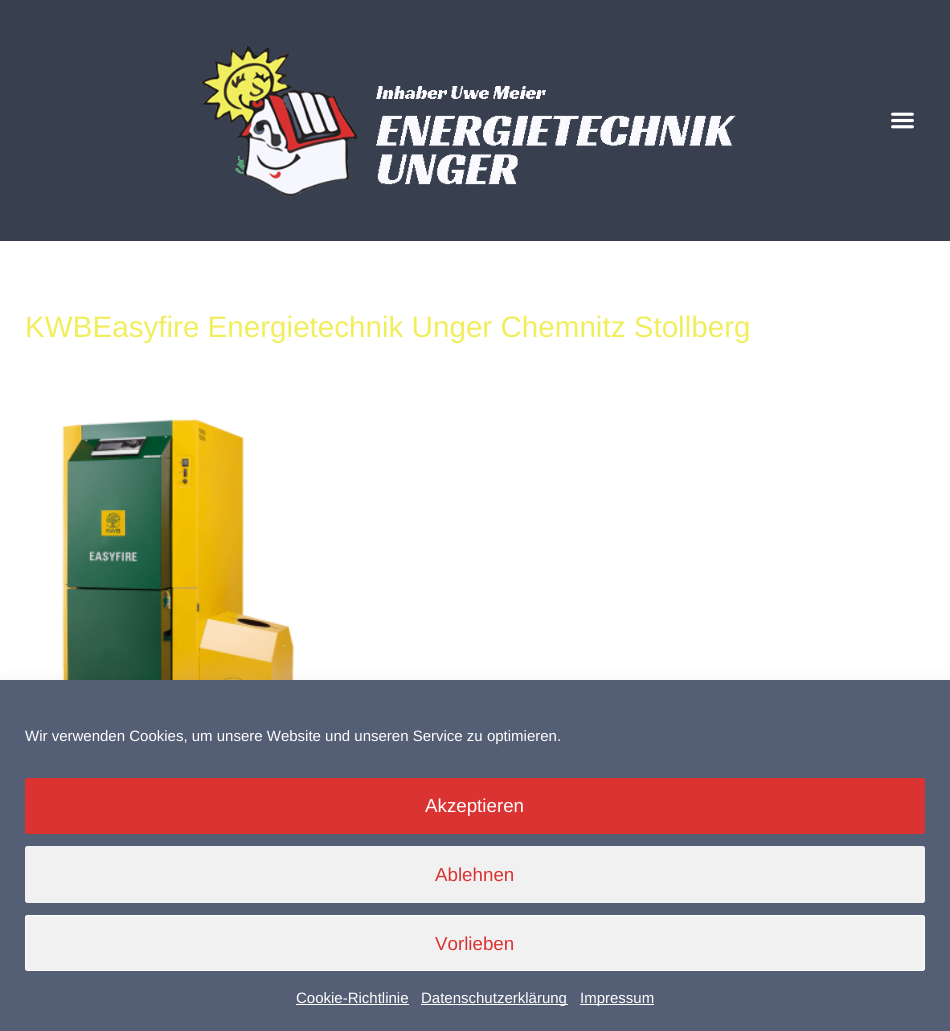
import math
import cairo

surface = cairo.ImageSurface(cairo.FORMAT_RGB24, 950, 1031)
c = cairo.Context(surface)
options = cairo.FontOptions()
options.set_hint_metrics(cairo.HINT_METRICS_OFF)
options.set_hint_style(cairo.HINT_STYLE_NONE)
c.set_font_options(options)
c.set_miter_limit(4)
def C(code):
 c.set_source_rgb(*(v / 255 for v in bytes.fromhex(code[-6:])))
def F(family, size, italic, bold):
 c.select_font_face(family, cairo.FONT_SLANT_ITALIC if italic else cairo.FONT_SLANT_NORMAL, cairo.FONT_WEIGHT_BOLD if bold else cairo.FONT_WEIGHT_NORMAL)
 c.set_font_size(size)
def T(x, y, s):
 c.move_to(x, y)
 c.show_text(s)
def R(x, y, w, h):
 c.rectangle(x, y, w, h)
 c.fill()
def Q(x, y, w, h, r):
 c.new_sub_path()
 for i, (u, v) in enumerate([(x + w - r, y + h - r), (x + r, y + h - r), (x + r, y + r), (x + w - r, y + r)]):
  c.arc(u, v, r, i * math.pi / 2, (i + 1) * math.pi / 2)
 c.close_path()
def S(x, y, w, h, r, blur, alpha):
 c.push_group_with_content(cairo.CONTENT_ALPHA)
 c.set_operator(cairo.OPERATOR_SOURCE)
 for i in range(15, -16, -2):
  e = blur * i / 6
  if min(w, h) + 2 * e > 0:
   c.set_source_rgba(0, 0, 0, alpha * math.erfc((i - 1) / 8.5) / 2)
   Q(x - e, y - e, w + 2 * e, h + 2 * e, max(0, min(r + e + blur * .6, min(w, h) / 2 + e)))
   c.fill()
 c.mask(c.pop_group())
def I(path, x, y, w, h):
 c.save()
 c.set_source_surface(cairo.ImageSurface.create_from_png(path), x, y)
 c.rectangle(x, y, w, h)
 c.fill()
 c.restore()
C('ffffff')
c.paint()
C('383f4e')
R(0,0,950,241)
I('1.png',201,45,535,152)
I('2.png',891,112,23,17)
F('Liberation Sans',29.6,0,0)
C('f1ee5e')
T(25,337,'KWBEasyfire Energietechnik Unger Chemnitz Stollberg')
I('3.png',62,418,232,262)
C('000000')
S(0,693,950,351,0,12.5,.19)
C('545e75')
R(0,680,950,351)
F('Liberation Sans',15,0,0)
C('ffffff')
T(25,741,'Wir verwenden Cookies, um unsere Website und unseren Service zu optimieren.')
C('db3232')
Q(25.5,778.5,899,55,2)
c.fill_preserve()
c.set_line_width(1)
c.stroke()
F('Liberation Sans',18.75,0,0)
C('ffffff')
T(425,812,'Akzeptieren')
C('f1f1f1')
Q(25.5,846.5,899,56,2)
c.fill_preserve()
c.stroke()
C('db3232')
T(435,881,'Ablehnen')
C('f1f1f1')
Q(25.5,915.5,899,55,2)
c.fill_preserve()
C('ffffff')
c.stroke()
C('db3232')
T(435,950,'Vorlieben')
F('Liberation Sans',15,0,0)
C('ffffff')
T(296,1003,'Cookie-Richtlinie')
R(296,1004,113,1)
R(421,1004,147,1)
T(421,1003,'Datenschutzerklärung')
R(580,1004,74,1)
T(580,1003,'Impressum')
surface.write_to_png('o.png')
